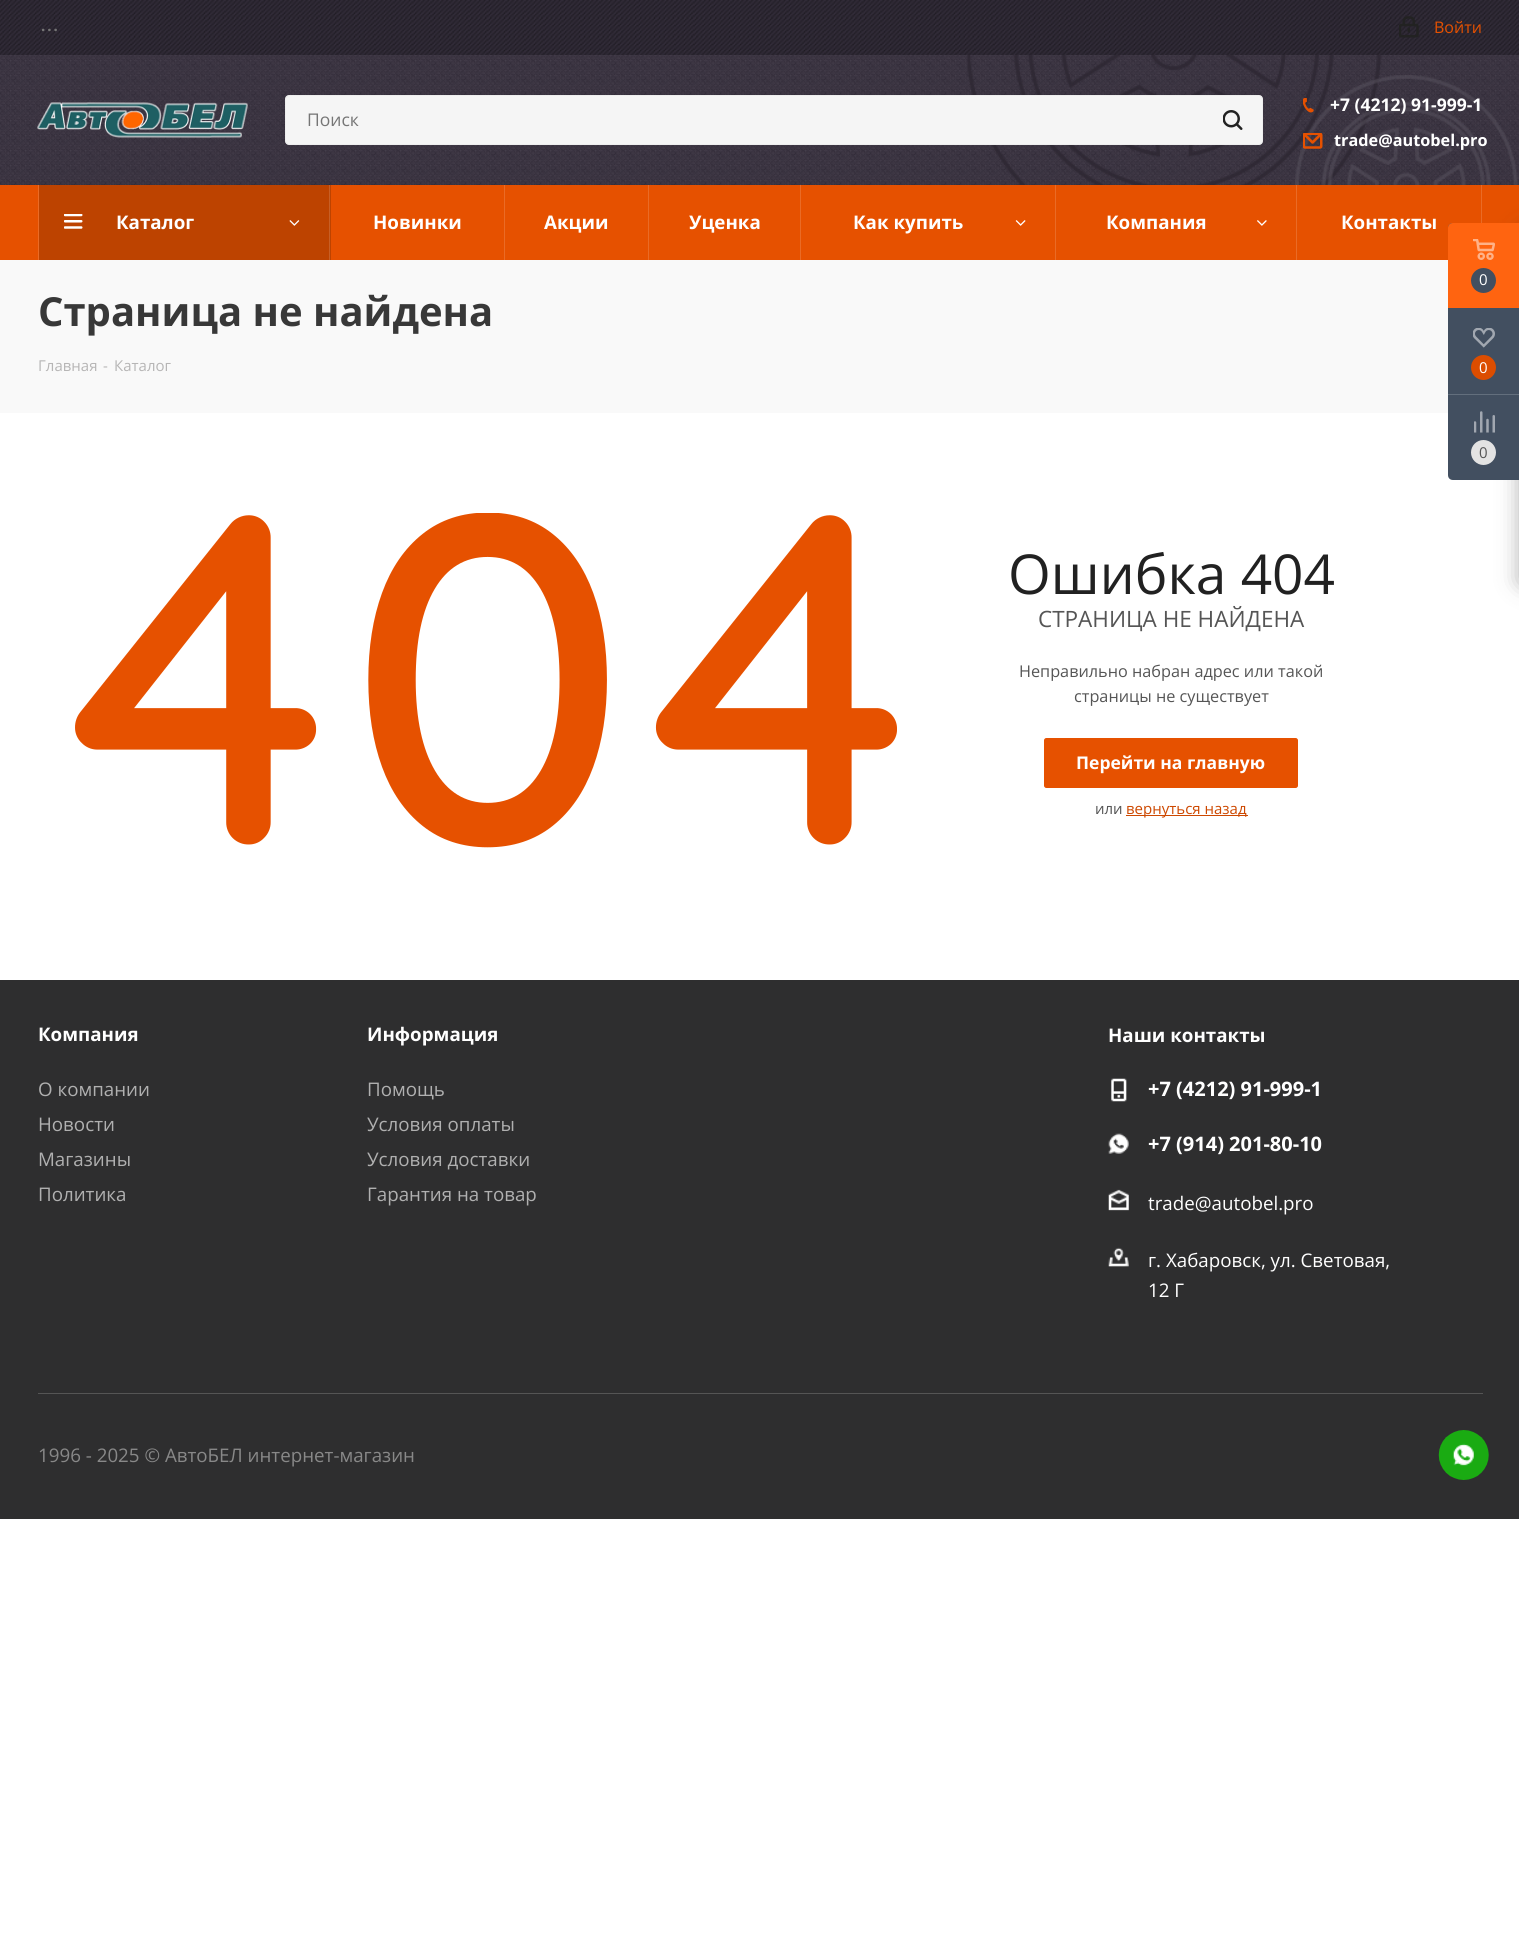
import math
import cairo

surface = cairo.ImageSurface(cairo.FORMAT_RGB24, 1519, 1933)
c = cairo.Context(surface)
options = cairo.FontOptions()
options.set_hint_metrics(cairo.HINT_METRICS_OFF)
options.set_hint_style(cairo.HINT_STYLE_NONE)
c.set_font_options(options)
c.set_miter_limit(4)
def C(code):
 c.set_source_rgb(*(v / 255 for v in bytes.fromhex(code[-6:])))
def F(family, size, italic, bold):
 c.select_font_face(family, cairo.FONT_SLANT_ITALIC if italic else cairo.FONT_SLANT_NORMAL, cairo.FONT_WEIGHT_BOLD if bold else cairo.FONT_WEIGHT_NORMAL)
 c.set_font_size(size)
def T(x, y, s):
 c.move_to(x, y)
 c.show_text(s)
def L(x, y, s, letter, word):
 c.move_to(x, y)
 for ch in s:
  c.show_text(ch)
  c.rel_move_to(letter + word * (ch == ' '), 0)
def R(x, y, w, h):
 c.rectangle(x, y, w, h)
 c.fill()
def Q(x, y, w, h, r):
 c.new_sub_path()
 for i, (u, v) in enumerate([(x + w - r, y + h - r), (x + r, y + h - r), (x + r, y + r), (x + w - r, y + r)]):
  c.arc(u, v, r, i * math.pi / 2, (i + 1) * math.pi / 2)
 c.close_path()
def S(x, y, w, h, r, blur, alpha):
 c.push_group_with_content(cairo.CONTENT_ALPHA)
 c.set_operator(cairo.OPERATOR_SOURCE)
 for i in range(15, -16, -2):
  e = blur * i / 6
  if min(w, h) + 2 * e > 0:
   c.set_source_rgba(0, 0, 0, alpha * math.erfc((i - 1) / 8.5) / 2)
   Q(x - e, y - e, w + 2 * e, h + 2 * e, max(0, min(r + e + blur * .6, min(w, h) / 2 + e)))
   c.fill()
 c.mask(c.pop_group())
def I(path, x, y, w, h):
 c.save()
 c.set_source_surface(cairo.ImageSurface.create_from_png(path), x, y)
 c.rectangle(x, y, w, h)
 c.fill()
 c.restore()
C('ffffff')
c.paint()
I('1.png',0,0,1519,55)
F('Open Sans',15,0,1)
C('757575')
L(41,31,'...',2,0)
I('2.png',1399,16,20,22)
F('Open Sans',16,0,0)
C('e65100')
T(1434,33,'Войти')
I('3.png',0,55,1519,130)
I('4.png',967,55,551,130)
I('5.png',37,102,211,36)
C('f5f5f5')
Q(285.5,95.5,977,49,3.5)
c.fill_preserve()
C('eeeeee')
c.set_line_width(1)
c.stroke()
F('Open Sans',17.5,0,0)
C('757575')
T(307,126,'Поиск')
I('6.png',1223,110,20,20)
I('7.png',1303,98,11,15)
F('Open Sans',17.5,0,1)
C('ffffff')
T(1330,111,'+7 (4212) 91-999-1')
I('8.png',1303,133,20,16)
F('Open Sans',16.25,0,1)
T(1334,146,'trade@autobel.pro')
C('e65100')
R(0,185,1519,75)
C('ea6b26')
R(38,185,1,75)
C('bd4300')
R(39,185,292,75)
C('c75f26')
R(329,185,1,75)
I('9.png',64,214,19,15)
F('Open Sans',18.75,0,1)
C('ffffff')
T(116,229,'Каталог')
I('10.png',289,220,11,6)
C('ea6b26')
R(504,185,1,75)
C('ffffff')
T(373,229,'Новинки')
C('ea6b26')
R(648,185,1,75)
C('ffffff')
T(544,229,'Акции')
C('ea6b26')
R(800,185,1,75)
C('ffffff')
T(689,229,'Уценка')
C('ea6b26')
R(1055,185,1,75)
C('ffffff')
T(853,229,'Как купить')
I('11.png',1015,220,11,6)
C('ea6b26')
R(1296,185,1,75)
C('ffffff')
T(1106,229,'Компания')
I('12.png',1257,220,10,6)
C('ea6b26')
R(1481,185,1,38)
C('ffffff')
T(1341,229,'Контакты')
C('f9f9f9')
R(0,260,1448,153)
F('Open Sans',40,0,1)
C('383838')
T(38,326,'Страница не найдена')
F('Open Sans',15,0,0)
C('b6b5b5')
T(38,371,'Главная')
T(103,371,'-')
T(114,371,'Каталог')
I('13.png',75,513,822,335)
F('Open Sans',55,0,0)
C('212121')
T(1008,594,'Ошибка 404')
F('Open Sans',22.5,0,0)
C('555555')
T(1038,627,'СТРАНИЦА НЕ НАЙДЕНА')
F('Open Sans',16.25,0,0)
T(1019,677,'Неправильно набран адрес или такой')
T(1074,702,'страницы не существует')
C('e65100')
Q(1044.5,738.5,253,49,2)
c.fill_preserve()
c.stroke()
F('Open Sans',17.5,0,1)
C('ffffff')
T(1076,769,'Перейти на главную')
F('Open Sans',15,0,0)
C('555555')
T(1095,814,'или')
C('cd4800')
R(1126,815,122,1)
T(1126,814,'вернуться назад')
C('2c2c2c')
S(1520,230,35,354,2.5,11,.4)
C('424f60')
c.new_path()
c.move_to(1453,223)
c.line_to(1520,223)
c.line_to(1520,480)
c.line_to(1453,480)
c.curve_to(1450,480,1448,478,1448,475)
c.line_to(1448,228)
c.curve_to(1448,225,1450,223,1453,223)
c.close_path()
c.fill()
C('ff6410')
c.new_path()
c.move_to(1453,223)
c.line_to(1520,223)
c.line_to(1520,308)
c.line_to(1448,308)
c.line_to(1448,228)
c.curve_to(1448,225,1450,223,1453,223)
c.close_path()
c.fill()
I('14.png',1473,239,22,21)
C('424f60')
c.arc(1483.5,280.5,12.5,0,2 * math.pi)
c.fill()
C('ffffff')
T(1479,285,'0')
I('15.png',1473,328,22,20)
C('dc4d00')
c.arc(1483.5,367.5,12.5,0,2 * math.pi)
c.fill()
C('ffffff')
T(1479,373,'0')
C('636f7d')
R(1448,394,71,1)
I('16.png',1474,411,21,22)
C('e3e3e3')
c.arc(1483.5,452.5,12.5,0,2 * math.pi)
c.fill()
C('555555')
T(1479,458,'0')
C('2e2e2f')
R(0,980,1519,539)
F('Open Sans',18.75,0,1)
C('ffffff')
T(38,1041,'Компания')
F('Open Sans',18.75,0,0)
C('b0b0b0')
T(38,1096,'О компании')
T(38,1131,'Новости')
T(38,1166,'Магазины')
T(38,1201,'Политика')
F('Open Sans',18.75,0,1)
C('ffffff')
T(367,1041,'Информация')
F('Open Sans',18.75,0,0)
C('b0b0b0')
T(367,1096,'Помощь')
T(367,1131,'Условия оплаты')
T(367,1166,'Условия доставки')
T(367,1201,'Гарантия на товар')
F('Open Sans',18.75,0,1)
C('ffffff')
T(1108,1042,'Наши контакты')
I('17.png',1111,1078,16,24)
F('Open Sans',20,0,1)
T(1148,1096,'+7 (4212) 91-999-1')
I('18.png',1108,1133,21,21)
T(1148,1151,'+7 (914) 201-80-10')
I('19.png',1108,1189,21,22)
F('Open Sans',18.75,0,0)
T(1148,1210,'trade@autobel.pro')
I('20.png',1108,1247,21,20)
T(1148,1267,'г. Хабаровск, ул. Световая,')
T(1148,1297,'12 Г')
C('555555')
R(38,1393,1445,1)
C('888888')
T(38,1462,'1996 - 2025 © АвтоБЕЛ интернет-магазин')
I('21.png',1438,1430,51,50)
surface.write_to_png('o.png')
